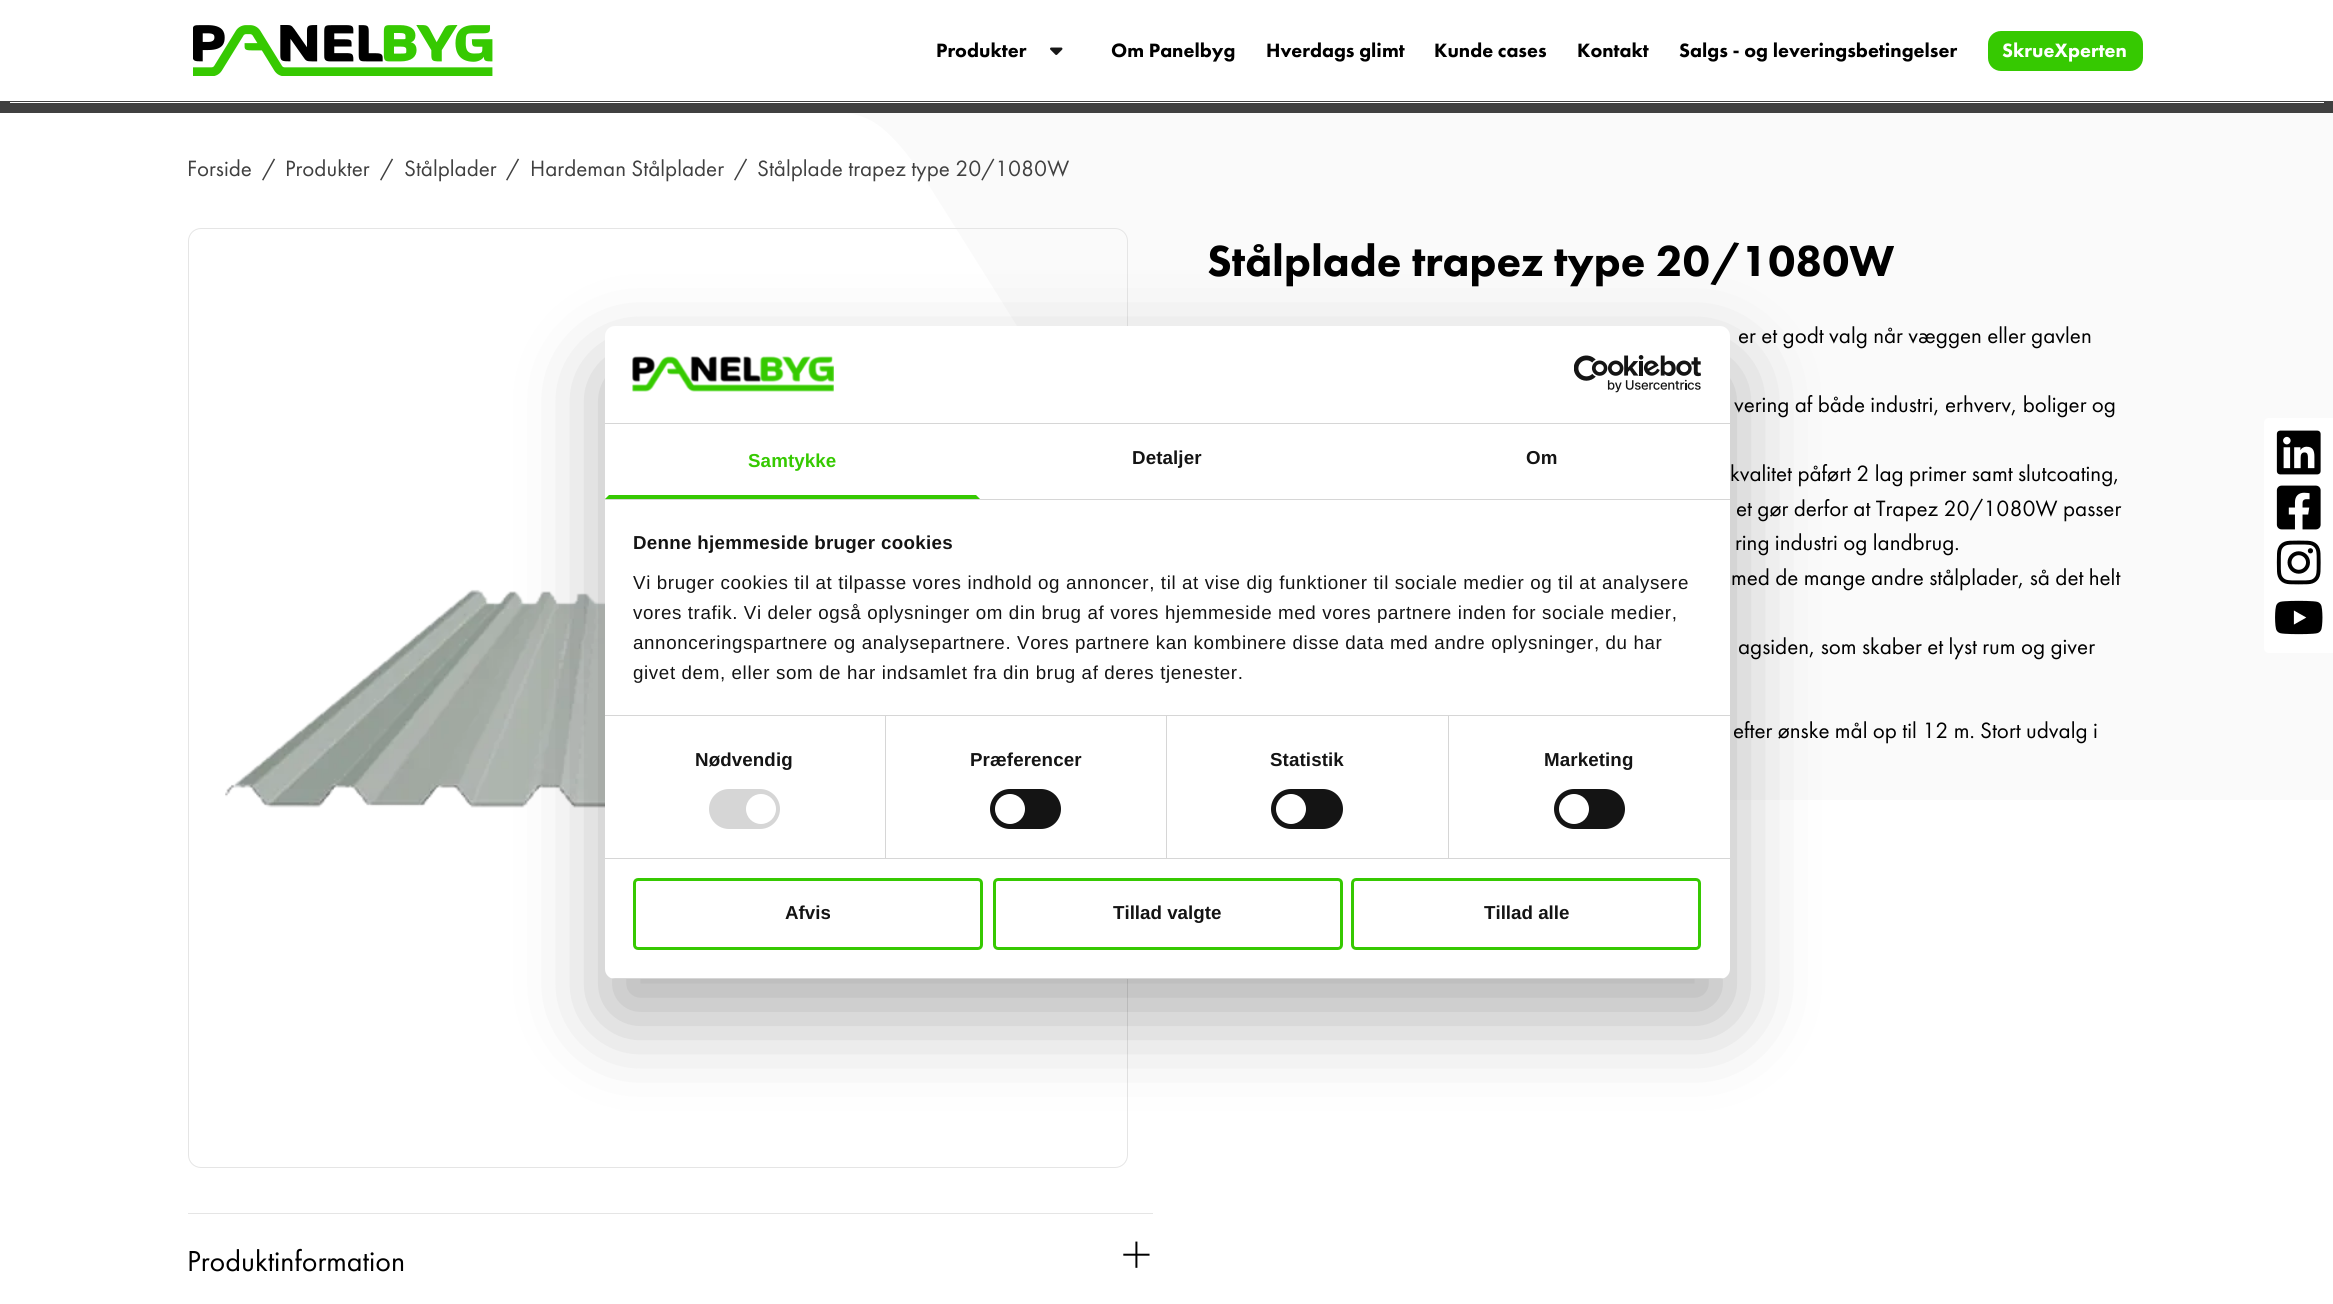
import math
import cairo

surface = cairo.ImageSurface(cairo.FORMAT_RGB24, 2333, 1304)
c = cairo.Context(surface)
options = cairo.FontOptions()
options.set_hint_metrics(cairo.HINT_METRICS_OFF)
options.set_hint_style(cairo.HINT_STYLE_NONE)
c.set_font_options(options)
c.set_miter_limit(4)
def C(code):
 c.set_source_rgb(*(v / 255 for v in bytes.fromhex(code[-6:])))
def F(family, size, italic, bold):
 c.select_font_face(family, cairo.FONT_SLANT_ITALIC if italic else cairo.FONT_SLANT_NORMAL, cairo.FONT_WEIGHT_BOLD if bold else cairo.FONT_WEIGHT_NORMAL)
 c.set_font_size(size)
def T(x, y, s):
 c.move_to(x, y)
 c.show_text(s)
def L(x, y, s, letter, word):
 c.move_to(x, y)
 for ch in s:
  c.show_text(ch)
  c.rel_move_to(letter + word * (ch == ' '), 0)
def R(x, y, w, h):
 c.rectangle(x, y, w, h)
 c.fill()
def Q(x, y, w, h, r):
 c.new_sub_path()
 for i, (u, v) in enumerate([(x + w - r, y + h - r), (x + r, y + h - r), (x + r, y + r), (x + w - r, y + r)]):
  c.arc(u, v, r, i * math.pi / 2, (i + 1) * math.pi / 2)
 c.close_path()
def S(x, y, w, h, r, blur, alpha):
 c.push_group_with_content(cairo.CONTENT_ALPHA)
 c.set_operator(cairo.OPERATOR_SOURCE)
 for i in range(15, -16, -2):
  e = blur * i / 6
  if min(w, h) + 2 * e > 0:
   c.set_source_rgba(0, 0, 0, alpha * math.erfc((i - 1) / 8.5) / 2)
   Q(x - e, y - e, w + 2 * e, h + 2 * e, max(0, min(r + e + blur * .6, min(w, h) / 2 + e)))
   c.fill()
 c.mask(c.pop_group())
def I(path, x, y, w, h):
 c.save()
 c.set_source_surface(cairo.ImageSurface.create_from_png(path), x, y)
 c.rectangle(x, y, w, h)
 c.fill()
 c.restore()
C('ffffff')
c.paint()
I('1.png',193,25,300,51)
F('Futura PT Black',20,0,0)
C('000000')
T(936,57,'Produkter')
I('2.png',1050,47,13,8)
T(1111,57,'Om Panelbyg')
T(1266,57,'Hverdags glimt')
T(1434,57,'Kunde cases')
T(1577,57,'Kontakt')
T(1679,57,'Salgs - og leveringsbetingelser')
C('36c901')
Q(1988,31,155,40,13)
c.fill()
C('ffffff')
T(2002,57,'SkrueXperten')
C('404040')
R(10,101,2314,1)
R(2324,101,9,2)
R(10,103,2323,10)
R(0,101,10,12)
C('fafafa')
c.new_path()
c.move_to(2333,800)
c.line_to(1434,800)
c.curve_to(1399,800,1296,788,1214,649)
c.curve_to(1115,480,928,184,928,184)
c.curve_to(928,184,903,143,878,125)
c.curve_to(867,117,855,114,846,113)
c.line_to(2333,113)
c.close_path()
c.fill()
F('Futura PT',23,0,0)
C('404040')
T(187,176,'Forside')
T(262,176,'/')
T(285,176,'Produkter')
T(380,176,'/')
T(404,176,'Stålplader')
T(506,176,'/')
T(530,176,'Hardeman Stålplader')
T(734,176,'/')
T(757,176,'Stålplade trapez type 20/1080W')
Q(188.5,228.5,939,939,12.5)
C('e5e5e5')
c.set_line_width(1)
c.stroke()
I('3.png',225,589,380,219)
F('Futura PT Black',45,0,0)
C('000000')
T(1207,276,'Stålplade trapez type 20/1080W')
F('Futura PT',23,0,0)
T(1738,343,'er et godt valg når væggen eller gavlen')
T(1734,412,'vering af både industri, erhverv, boliger og')
T(1730,481,'kvalitet påført 2 lag primer samt slutcoating,')
T(1736,516,'et gør derfor at Trapez 20/1080W passer')
T(1735,550,'ring industri og landbrug.')
T(1731,585,'med de mange andre stålplader, så det helt')
T(1738,654,'agsiden, som skaber et lyst rum og giver')
T(1733,738,'efter ønske mål op til 12 m. Stort udvalg i')
C('e5e5e5')
R(188,1213,965,1)
F('Futura PT',30,0,0)
C('000000')
T(187,1271,'Produktinformation')
I('4.png',1123,1241,27,27)
C('ffffff')
c.new_path()
c.move_to(2269,418)
c.line_to(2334,418)
c.line_to(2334,653)
c.line_to(2269,653)
c.curve_to(2266,653,2264,651,2264,648)
c.line_to(2264,423)
c.curve_to(2264,420,2266,418,2269,418)
c.close_path()
c.fill()
I('5.png',2276,430,45,45)
I('6.png',2276,485,45,45)
I('7.png',2276,540,45,45)
I('8.png',2275,600,48,35)
C('000000')
S(605,366,1125,653,10,42.5,.3)
C('ffffff')
Q(605,326,1125,653,10)
c.fill()
C('d6d6d6')
R(605,423,1125,1)
I('9.png',632,356,202,36)
I('10.png',1574,355,127,38)
R(605,499,1125,1)
C('36c901')
c.new_path()
c.move_to(980,499)
c.line_to(605,499)
c.line_to(609,495)
c.line_to(976,495)
c.close_path()
c.fill()
F('Liberation Sans',18.75,0,1)
L(748,467,'Samtykke',.1,0)
C('141414')
L(1132,464,'Detaljer',.1,0)
L(1526,464,'Om',.1,0)
C('d6d6d6')
R(605,715,1125,1)
C('141414')
L(633,549,'Denne hjemmeside bruger cookies',.3,0)
F('Liberation Sans',18.75,0,0)
L(633,589,'Vi bruger cookies til at tilpasse vores indhold og annoncer, til at vise dig funktioner til sociale medier og til at analysere',.62,0)
L(633,619,'vores trafik. Vi deler også oplysninger om din brug af vores hjemmeside med vores partnere inden for sociale medier,',.62,0)
L(633,649,'annonceringspartnere og analysepartnere. Vores partnere kan kombinere disse data med andre oplysninger, du har',.62,0)
L(633,679,'givet dem, eller som de har indsamlet fra din brug af deres tjenester.',.62,0)
C('d6d6d6')
R(605,858,1125,1)
R(885,716,1,142)
F('Liberation Sans',18.75,0,1)
C('141414')
L(695,766,'Nødvendig',.1,0)
C('d6d6d6')
Q(709,789,71,40,20)
c.fill()
C('ffffff')
c.arc(761,809,15,0,2 * math.pi)
c.fill()
C('d6d6d6')
R(1166,716,1,142)
C('141414')
L(970,766,'Præferencer',.1,0)
Q(990,789,71,40,20)
c.fill()
C('ffffff')
c.arc(1010,809,15,0,2 * math.pi)
c.fill()
C('d6d6d6')
R(1448,716,1,142)
C('141414')
L(1270,766,'Statistik',.1,0)
Q(1271,789,72,40,20)
c.fill()
C('ffffff')
c.arc(1291,809,15,0,2 * math.pi)
c.fill()
C('141414')
L(1544,766,'Marketing',.1,0)
Q(1554,789,71,40,20)
c.fill()
C('ffffff')
c.arc(1574,809,15,0,2 * math.pi)
c.fill()
c.save()
Q(605,326,1125,653,10)
c.clip()
C('d6d6d6')
R(605,978,1125,1)
c.restore()
Q(634.5,879.5,347,69,3.5)
C('36c901')
c.set_line_width(3)
c.stroke()
C('141414')
T(785,919,'Afvis')
Q(994.5,879.5,347,69,3.5)
C('36c901')
c.stroke()
C('141414')
T(1113,919,'Tillad valgte')
Q(1352.5,879.5,347,69,3.5)
C('36c901')
c.stroke()
C('141414')
T(1484,919,'Tillad alle')
surface.write_to_png('o.png')
